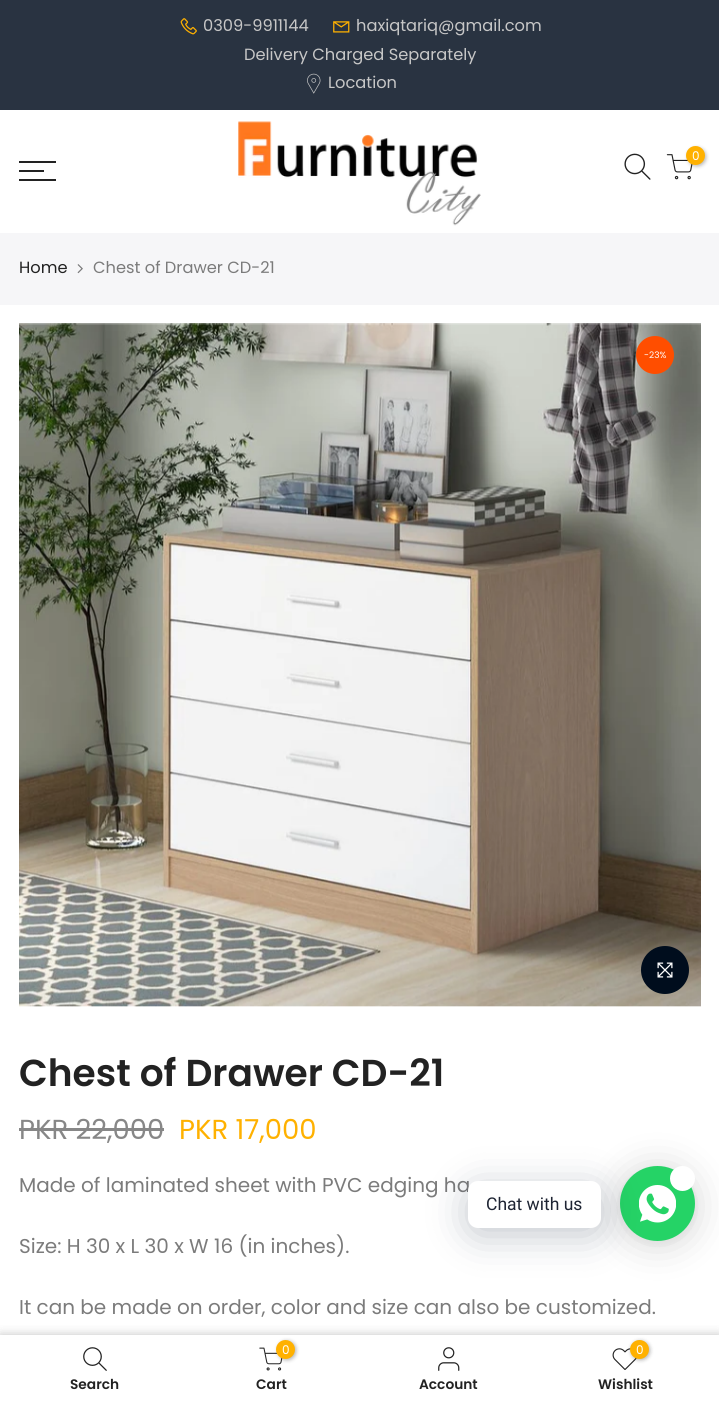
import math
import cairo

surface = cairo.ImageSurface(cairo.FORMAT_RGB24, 719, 1403)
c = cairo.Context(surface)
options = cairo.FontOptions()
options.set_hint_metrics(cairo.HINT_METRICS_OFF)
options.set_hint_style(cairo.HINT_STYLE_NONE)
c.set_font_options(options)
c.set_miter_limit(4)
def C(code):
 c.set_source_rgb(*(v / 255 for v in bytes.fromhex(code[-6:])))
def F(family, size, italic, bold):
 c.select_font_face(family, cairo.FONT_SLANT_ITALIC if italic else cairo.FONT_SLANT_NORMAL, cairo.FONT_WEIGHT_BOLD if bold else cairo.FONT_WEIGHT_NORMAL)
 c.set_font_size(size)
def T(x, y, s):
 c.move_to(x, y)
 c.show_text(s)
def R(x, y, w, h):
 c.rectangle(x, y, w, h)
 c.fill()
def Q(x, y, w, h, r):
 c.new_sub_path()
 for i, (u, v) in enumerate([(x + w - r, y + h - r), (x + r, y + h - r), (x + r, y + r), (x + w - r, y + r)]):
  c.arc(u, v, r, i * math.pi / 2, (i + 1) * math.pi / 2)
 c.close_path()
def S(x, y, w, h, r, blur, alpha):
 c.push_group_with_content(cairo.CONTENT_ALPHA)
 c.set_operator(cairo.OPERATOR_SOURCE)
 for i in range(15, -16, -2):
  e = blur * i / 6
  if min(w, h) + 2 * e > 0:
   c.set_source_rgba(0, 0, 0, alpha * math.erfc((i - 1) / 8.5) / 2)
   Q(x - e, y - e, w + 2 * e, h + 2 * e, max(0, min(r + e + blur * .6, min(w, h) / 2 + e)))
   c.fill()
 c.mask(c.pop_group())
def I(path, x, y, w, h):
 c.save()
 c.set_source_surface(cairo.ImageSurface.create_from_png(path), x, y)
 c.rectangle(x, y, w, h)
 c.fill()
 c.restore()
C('ffffff')
c.paint()
C('293341')
R(0,0,719,110)
I('1.png',180,18,17,17)
F('Poppins',16.25,0,0)
C('c7c7c7')
T(203,31,'0309-9911144')
I('2.png',333,21,17,12)
T(356,31,'haxiqtariq@gmail.com')
T(244,60,'Delivery Charged Separately')
I('3.png',307,73,14,21)
T(328,88,'Location')
I('4.png',238,121,243,105)
I('5.png',624,153,27,27)
I('6.png',666,154,27,26)
C('000000')
S(688,148,18,18,9,2,.3)
C('ffb100')
c.arc(695.5,155.5,9.5,0,2 * math.pi)
c.fill()
F('Poppins',12,0,0)
C('ffffff')
T(692,160,'0')
C('222222')
R(19,161,37,2)
R(19,170,25,2)
R(19,179,37,2)
C('f6f6f8')
R(0,233,719,72)
F('Poppins',16.25,0,0)
C('222222')
T(19,273,'Home')
I('7.png',77,264,6,10)
C('7b7b7b')
T(93,273,'Chest of Drawer CD-21')
I('8.png',19,323,682,684)
C('ff4e00')
c.arc(655,355,19,0,2 * math.pi)
c.fill()
F('Poppins',9,0,0)
C('ffffff')
T(644,358,'-23%')
C('000d1d')
c.new_path()
c.arc(665,970,24,0,2 * math.pi)
c.fill()
I('9.png',657,962,16,16)
F('Poppins SemiBold',37.5,0,0)
C('222222')
T(19,1086,'Chest of Drawer CD-21')
F('Poppins',27.5,0,0)
C('878787')
T(19,1139,'PKR 22,000')
R(19,1128,145,3)
C('ffb100')
T(179,1139,'PKR 17,000')
F('Poppins',20,0,0)
C('7b7b7b')
T(19,1192,'Made of laminated sheet with PVC edging ha')
T(19,1253,'Size: H 30 x L 30 x W 16 (in inches).')
T(19,1314,'It can be made on order, color and size can also be customized.')
C('000000')
S(620,1169,75,75,37.5,20,.16)
S(620,1168,75,75,37.5,4,.06)
C('25d366')
c.arc(657.5,1203.5,37.5,0,2 * math.pi)
c.fill()
C('00122e')
S(468,1189,133,46,10,20,.24)
I('10.png',639,1185,37,38)
C('ffffff')
c.arc(682.5,1178.5,12.5,0,2 * math.pi)
c.fill()
Q(468,1181,133,47,10)
c.fill()
F('Roboto',17.5,0,0)
C('1e2433')
T(486,1210,'Chat with us')
C('000000')
S(0,1335,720,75,0,5.5,.12)
S(0,1335,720,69,0,5.5,.12)
C('ffffff')
R(0,1335,719,68)
I('11.png',83,1347,24,24)
F('Poppins SemiBold',13.75,0,0)
C('222222')
T(70,1389,'Search')
I('12.png',259,1347,24,24)
C('000000')
S(278,1341,18,19,9,2,.3)
C('ffb100')
c.arc(285.5,1349.5,9.5,0,2 * math.pi)
c.fill()
F('Poppins',12,0,0)
C('ffffff')
T(282,1354,'0')
F('Poppins SemiBold',13.75,0,0)
C('222222')
T(256,1389,'Cart')
I('13.png',438,1347,22,24)
T(419,1389,'Account')
I('14.png',612,1348,25,22)
C('000000')
S(631,1341,19,19,9.5,2,.3)
C('ffb100')
c.arc(639.5,1349.5,9.5,0,2 * math.pi)
c.fill()
F('Poppins',12,0,0)
C('ffffff')
T(636,1354,'0')
F('Poppins SemiBold',13.75,0,0)
C('222222')
T(598,1389,'Wishlist')
surface.write_to_png('o.png')
